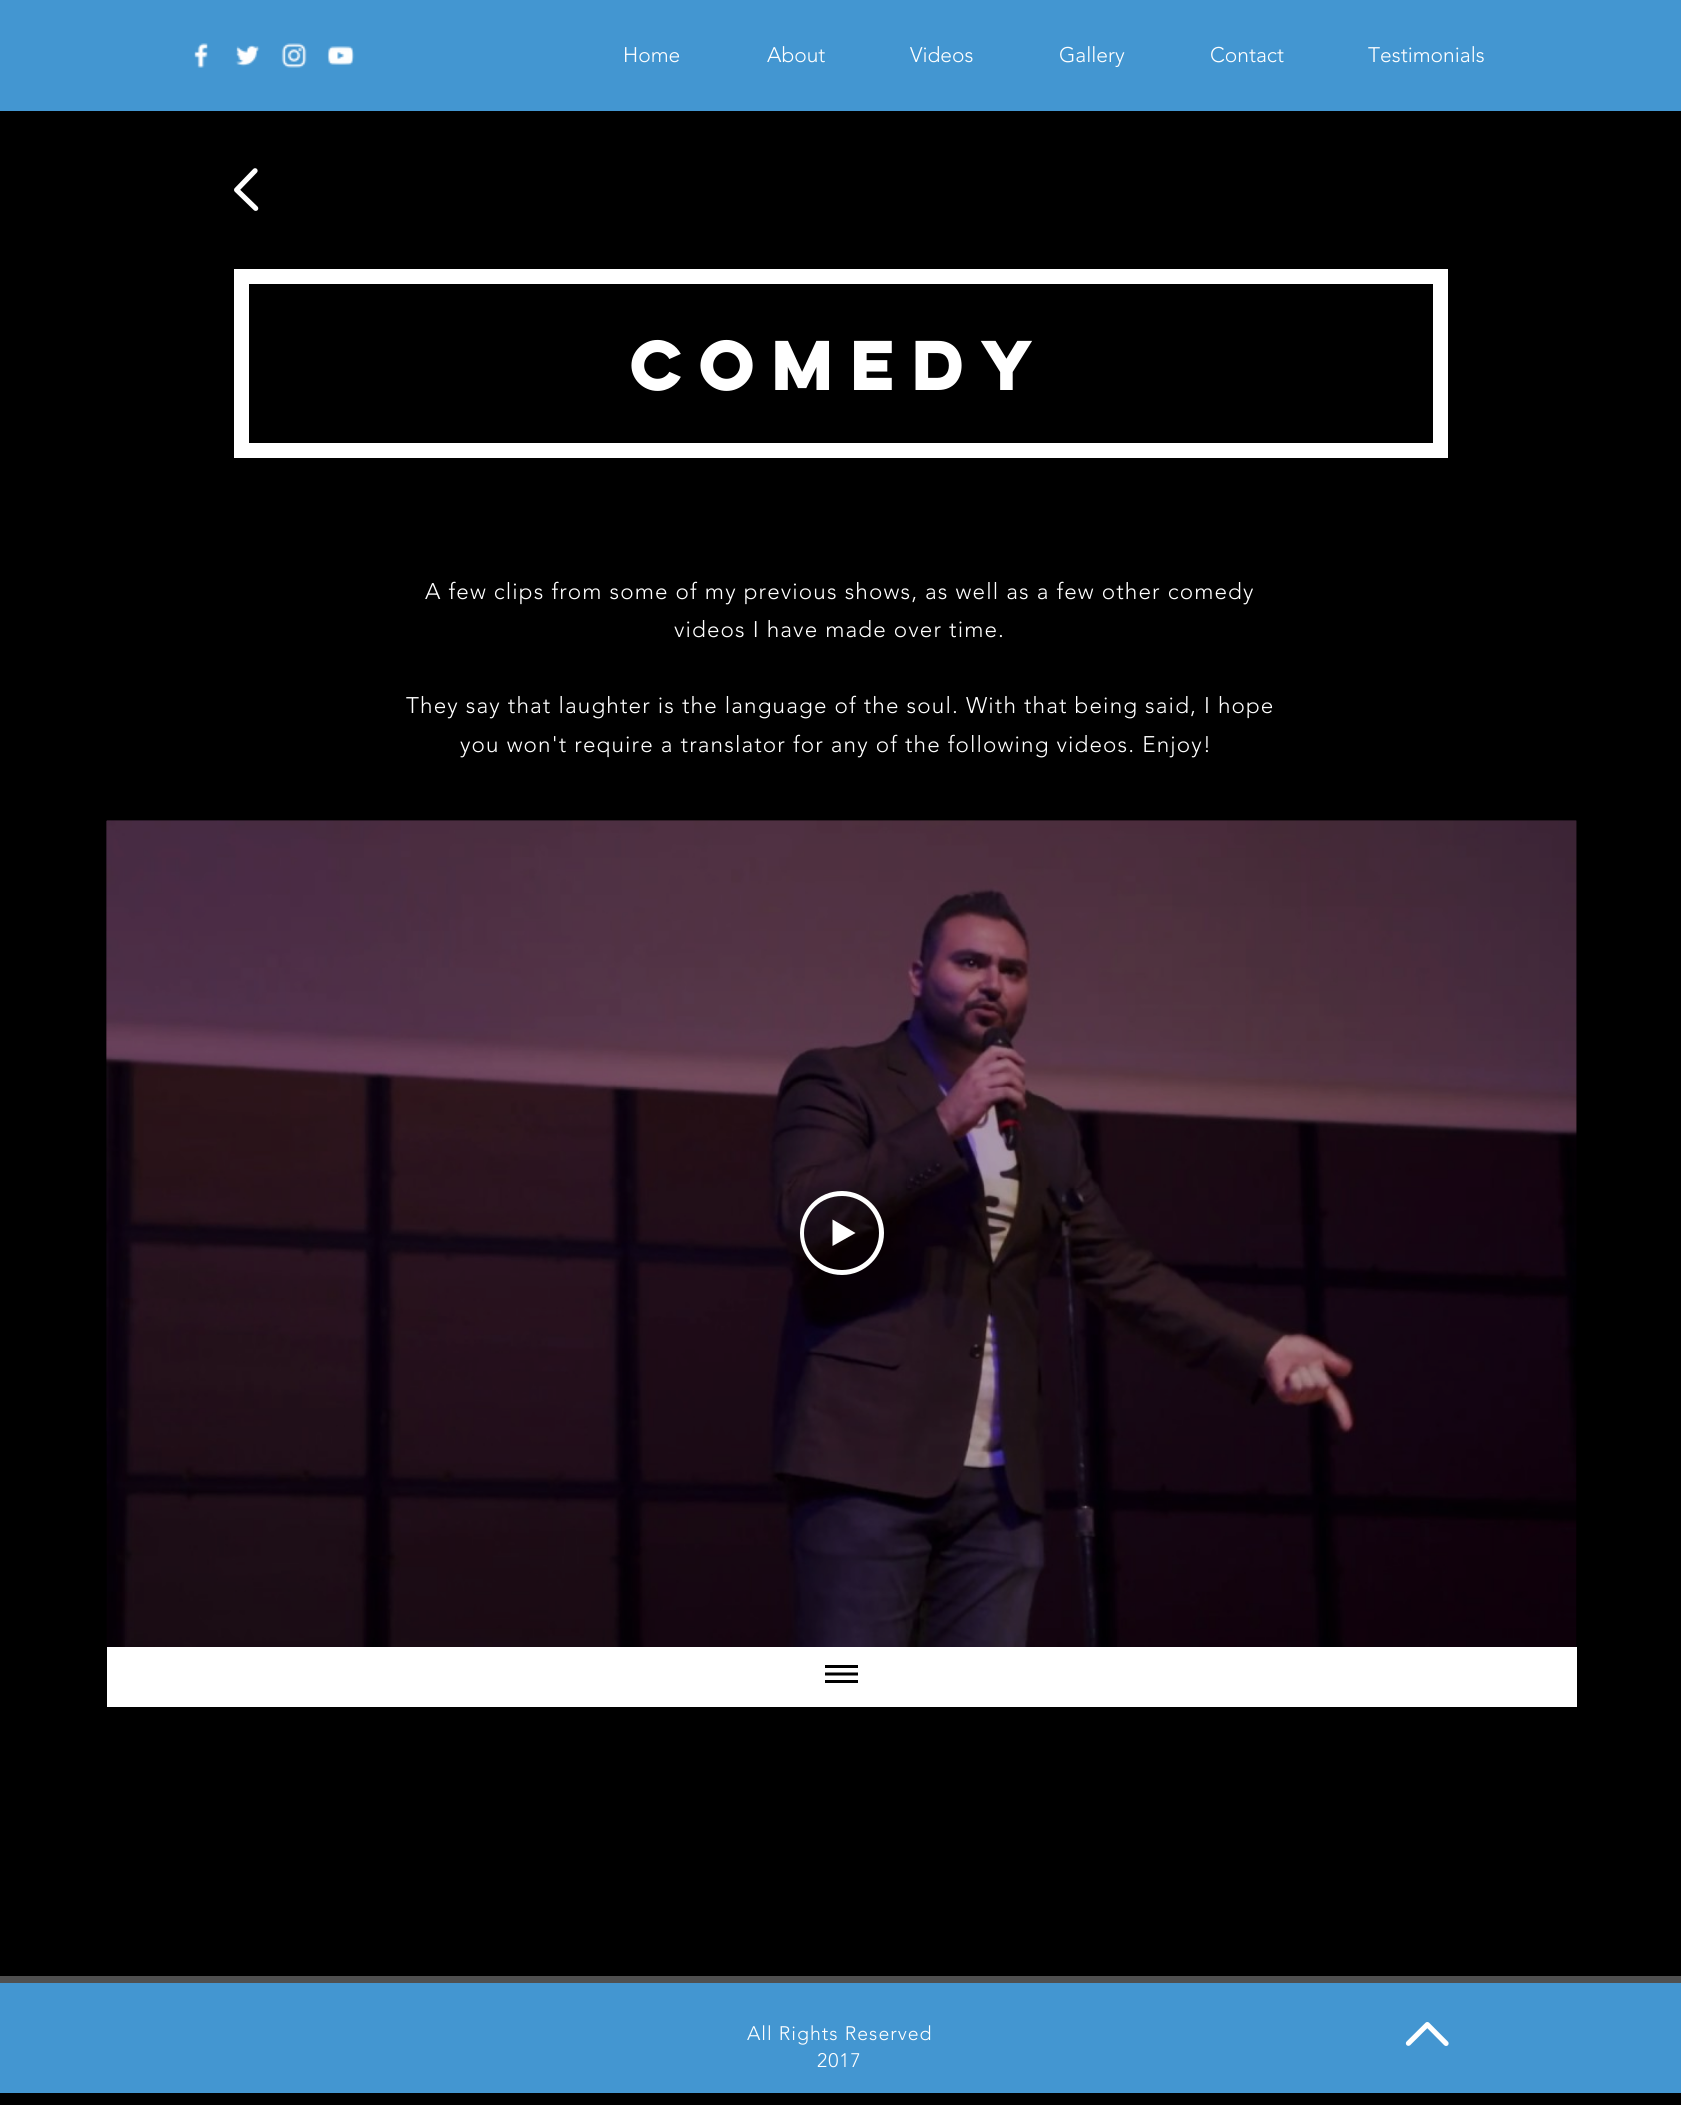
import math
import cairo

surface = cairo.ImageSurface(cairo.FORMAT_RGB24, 1681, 2105)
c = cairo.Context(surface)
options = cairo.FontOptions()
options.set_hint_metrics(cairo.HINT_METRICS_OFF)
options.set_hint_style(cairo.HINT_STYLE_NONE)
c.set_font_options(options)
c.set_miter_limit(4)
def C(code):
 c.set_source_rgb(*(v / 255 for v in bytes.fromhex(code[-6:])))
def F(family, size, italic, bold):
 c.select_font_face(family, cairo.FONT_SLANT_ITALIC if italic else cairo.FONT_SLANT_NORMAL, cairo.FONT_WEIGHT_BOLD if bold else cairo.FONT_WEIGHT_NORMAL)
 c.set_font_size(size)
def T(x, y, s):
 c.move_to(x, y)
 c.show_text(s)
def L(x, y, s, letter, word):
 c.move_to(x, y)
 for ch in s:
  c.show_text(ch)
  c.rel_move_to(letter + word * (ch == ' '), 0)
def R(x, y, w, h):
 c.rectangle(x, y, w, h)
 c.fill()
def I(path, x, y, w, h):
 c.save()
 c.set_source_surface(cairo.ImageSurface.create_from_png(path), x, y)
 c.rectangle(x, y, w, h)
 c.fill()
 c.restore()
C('000000')
c.paint()
C('4396d1')
R(0,0,1681,111)
I('1.png',194,43,14,25)
I('2.png',235,45,25,22)
I('3.png',281,43,26,25)
I('4.png',327,46,28,19)
F('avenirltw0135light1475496 Light',21,0,0)
C('ffffff')
T(623,62,'Home')
T(767,62,'About')
T(910,62,'Videos')
T(1059,62,'Gallery')
T(1210,62,'Contact')
T(1368,62,'Testimonials')
I('5.png',234,168,25,43)
c.rectangle(241.5,276.5,1199,174)
c.set_line_width(15)
c.stroke()
F('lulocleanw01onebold',63,0,1)
L(630,390,'comedy',3,0)
F('avenirltw0135light1475496 Light',22.5,0,0)
L(425,599,'A few clips from some of my previous shows, as well as a few other comedy',1.12,0)
L(674,637,'videos I have made over time.',1.12,0)
L(406,713,'They say that laughter is the language of the soul. With that being said, I hope',1.12,0)
L(460,752,'you won\'t require a translator for any of the following videos. Enjoy!',1.12,0)
I('6.png',106,820,1471,827)
I('7.png',106,820,1471,611)
c.set_fill_rule(cairo.FILL_RULE_EVEN_ODD)
c.new_path()
c.move_to(842,1270)
c.curve_to(862,1270,879,1254,879,1233)
c.curve_to(879,1212,862,1196,842,1196)
c.curve_to(821,1196,804,1212,804,1233)
c.curve_to(804,1254,821,1270,842,1270)
c.close_path()
c.move_to(842,1275)
c.curve_to(818,1275,800,1256,800,1233)
c.curve_to(800,1210,818,1191,842,1191)
c.curve_to(865,1191,884,1210,884,1233)
c.curve_to(884,1256,865,1275,842,1275)
c.close_path()
c.fill()
c.new_path()
c.move_to(855.5,1233)
c.line_to(832.5,1246)
c.line_to(832.5,1219.5)
c.close_path()
c.fill()
R(107,1647,1470,60)
C('000000')
c.new_path()
c.move_to(825,1675.5)
c.line_to(858,1675.5)
c.line_to(858,1672.5)
c.line_to(825,1672.5)
c.close_path()
c.move_to(825,1683)
c.line_to(858,1683)
c.line_to(858,1680)
c.line_to(825,1680)
c.close_path()
c.move_to(825,1668)
c.line_to(858,1668)
c.line_to(858,1665)
c.line_to(825,1665)
c.close_path()
c.fill()
C('4396d1')
R(0,1983,1681,110)
C('505050')
R(0,1976,1681,7)
F('avenirltw0135light1475496 Light',19.5,0,0)
C('ffffff')
L(747,2040,'All Rights Reserved',1,0)
L(817,2067,'2017',1,0)
I('8.png',1405,2022,44,24)
surface.write_to_png('o.png')
